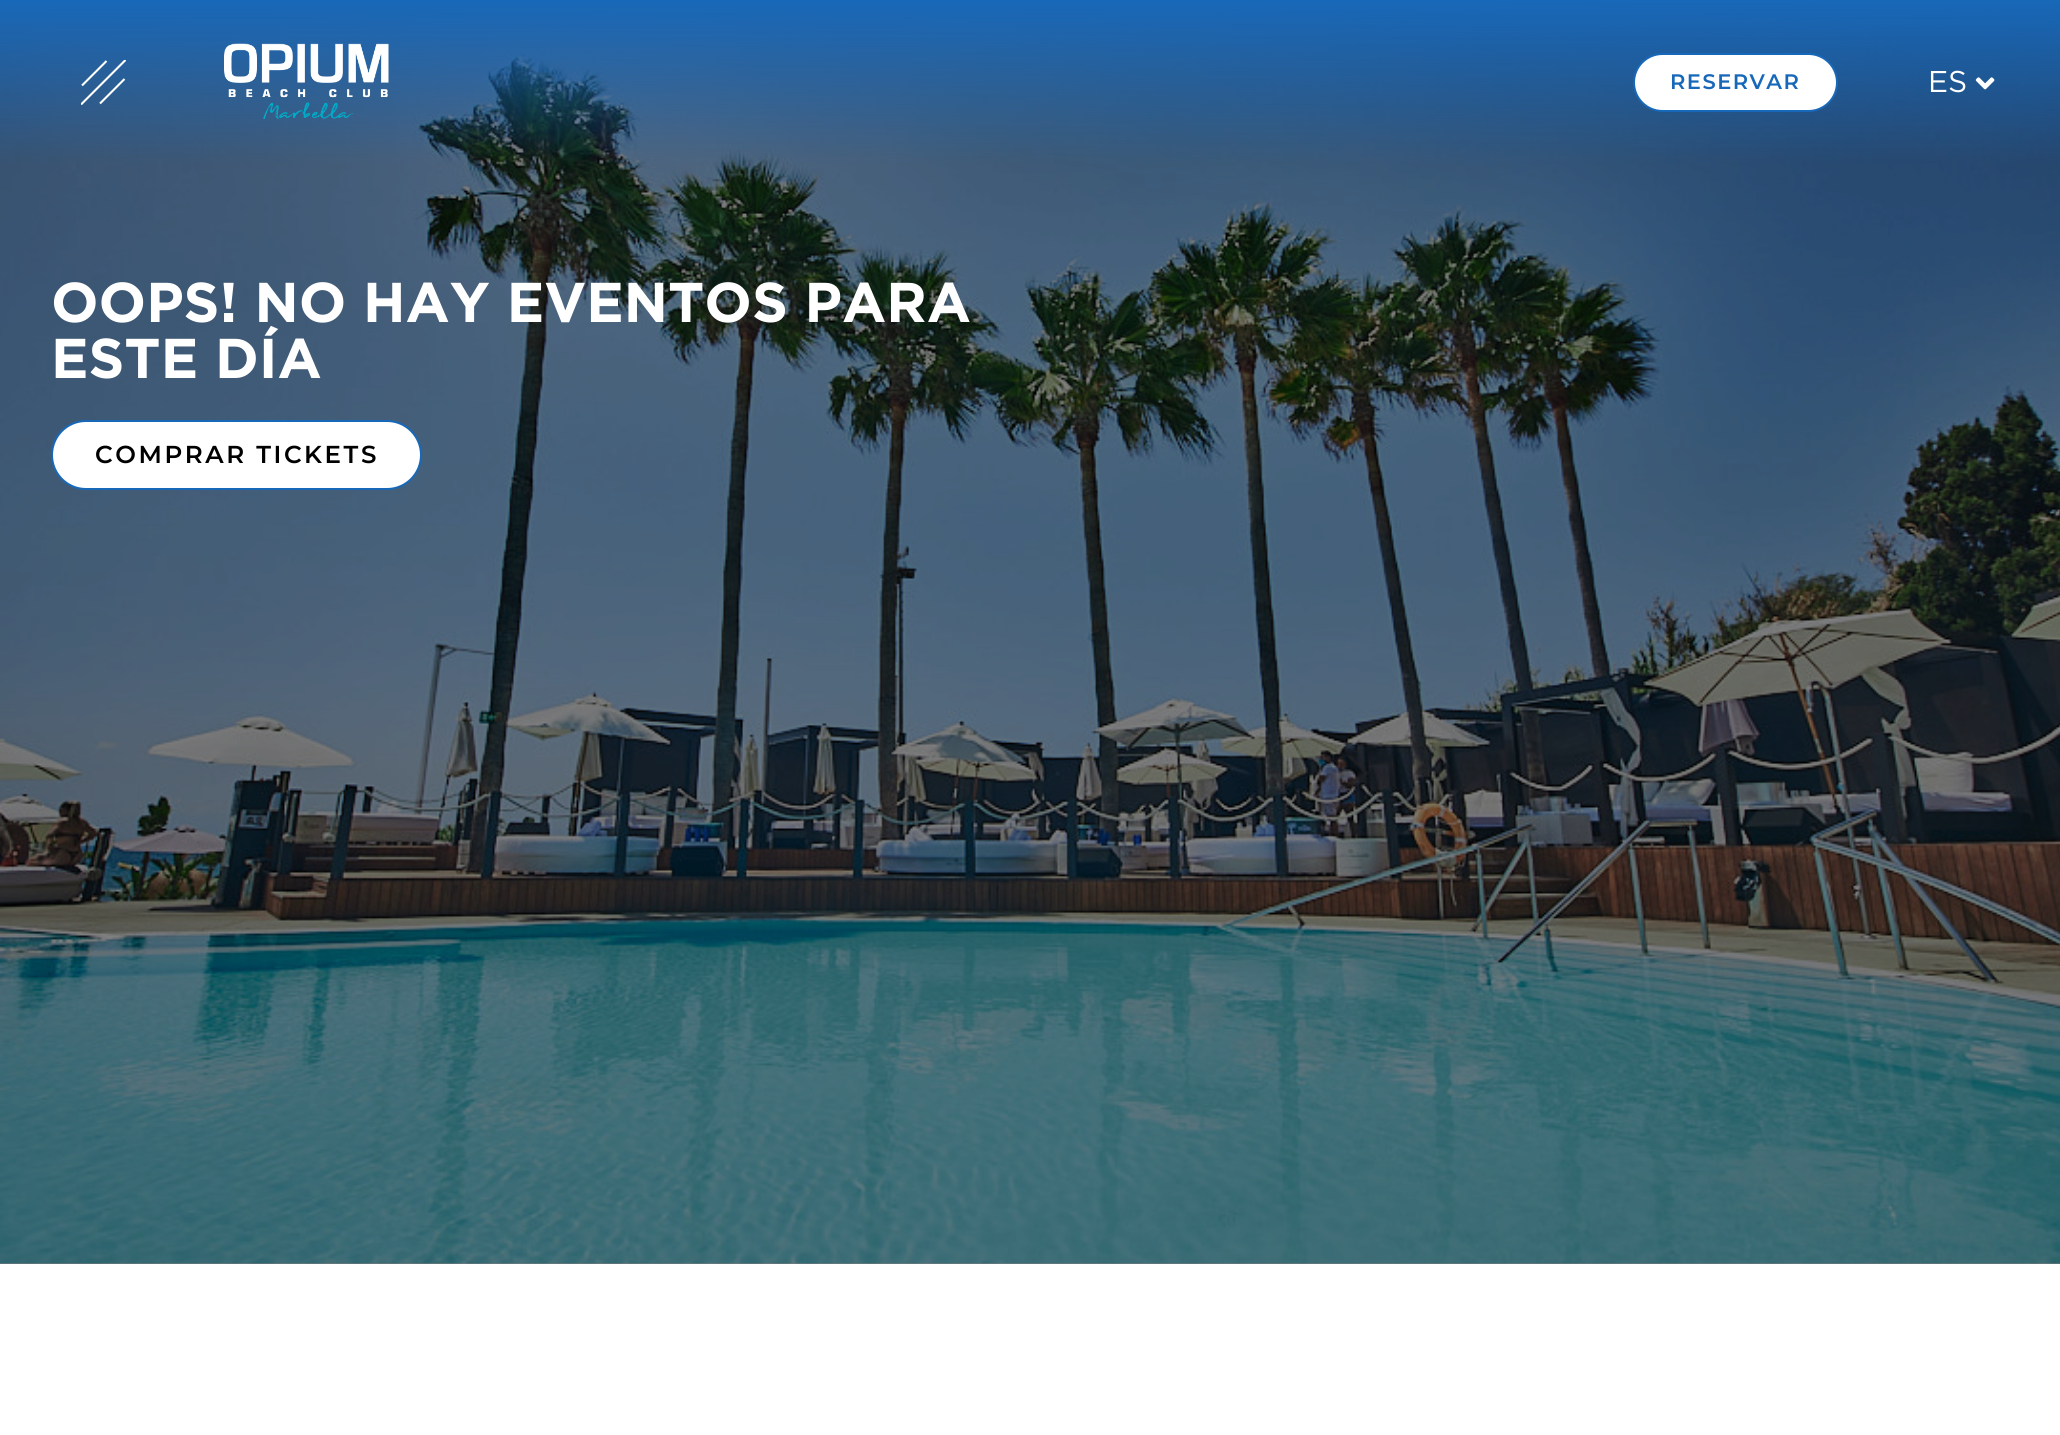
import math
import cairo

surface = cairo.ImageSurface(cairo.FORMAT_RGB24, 2060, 1435)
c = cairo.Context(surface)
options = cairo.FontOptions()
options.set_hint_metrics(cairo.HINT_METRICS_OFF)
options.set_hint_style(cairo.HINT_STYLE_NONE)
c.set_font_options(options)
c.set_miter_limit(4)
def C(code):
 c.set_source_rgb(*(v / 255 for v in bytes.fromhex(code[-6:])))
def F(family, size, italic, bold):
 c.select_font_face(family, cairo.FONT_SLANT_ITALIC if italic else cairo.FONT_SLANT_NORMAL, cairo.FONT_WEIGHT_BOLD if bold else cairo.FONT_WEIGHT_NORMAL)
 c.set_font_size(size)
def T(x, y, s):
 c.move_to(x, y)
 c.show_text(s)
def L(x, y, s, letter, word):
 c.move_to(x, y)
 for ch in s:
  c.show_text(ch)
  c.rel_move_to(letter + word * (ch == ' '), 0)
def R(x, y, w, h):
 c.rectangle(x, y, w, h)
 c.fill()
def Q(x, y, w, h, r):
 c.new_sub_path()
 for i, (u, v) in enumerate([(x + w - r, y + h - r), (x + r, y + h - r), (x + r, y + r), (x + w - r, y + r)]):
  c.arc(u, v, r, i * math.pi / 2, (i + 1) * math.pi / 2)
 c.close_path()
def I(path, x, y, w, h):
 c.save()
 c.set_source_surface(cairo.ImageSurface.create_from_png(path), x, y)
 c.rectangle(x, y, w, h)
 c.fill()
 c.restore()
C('ffffff')
c.paint()
C('808080')
R(0,1263,2060,1)
I('3.png',0,0,2060,1264)
c.new_path()
c.move_to(82,85.5)
c.line_to(106.5,61)
c.move_to(100,103.5)
c.line_to(124.5,79)
C('ffffff')
c.set_line_width(2.1)
c.stroke()
c.save()
c.rectangle(81,60,45,45)
c.clip()
c.new_path()
c.move_to(81,104.5)
c.line_to(125.5,60)
c.stroke()
c.restore()
I('1.png',224,43,165,76)
Q(1634,54,203,57,28.5)
c.fill_preserve()
C('1868b9')
c.set_line_width(2)
c.stroke()
F('Montserrat SemiBold',21,0,0)
L(1670,89,'RESERVAR',1.5,0)
F('Gotham',30,0,0)
C('ffffff')
T(1928,92,'ES')
I('2.png',1975,77,20,13)
F('Gotham',56,0,1)
T(51,322,'OOPS! NO HAY EVENTOS PARA')
T(51,378,'ESTE DÍA')
Q(52,421,369,68,34)
c.fill_preserve()
C('1868b9')
c.stroke()
F('Montserrat SemiBold',24.5,0,0)
C('000000')
L(95,463,'COMPRAR TICKETS',2.6,0)
surface.write_to_png('o.png')
